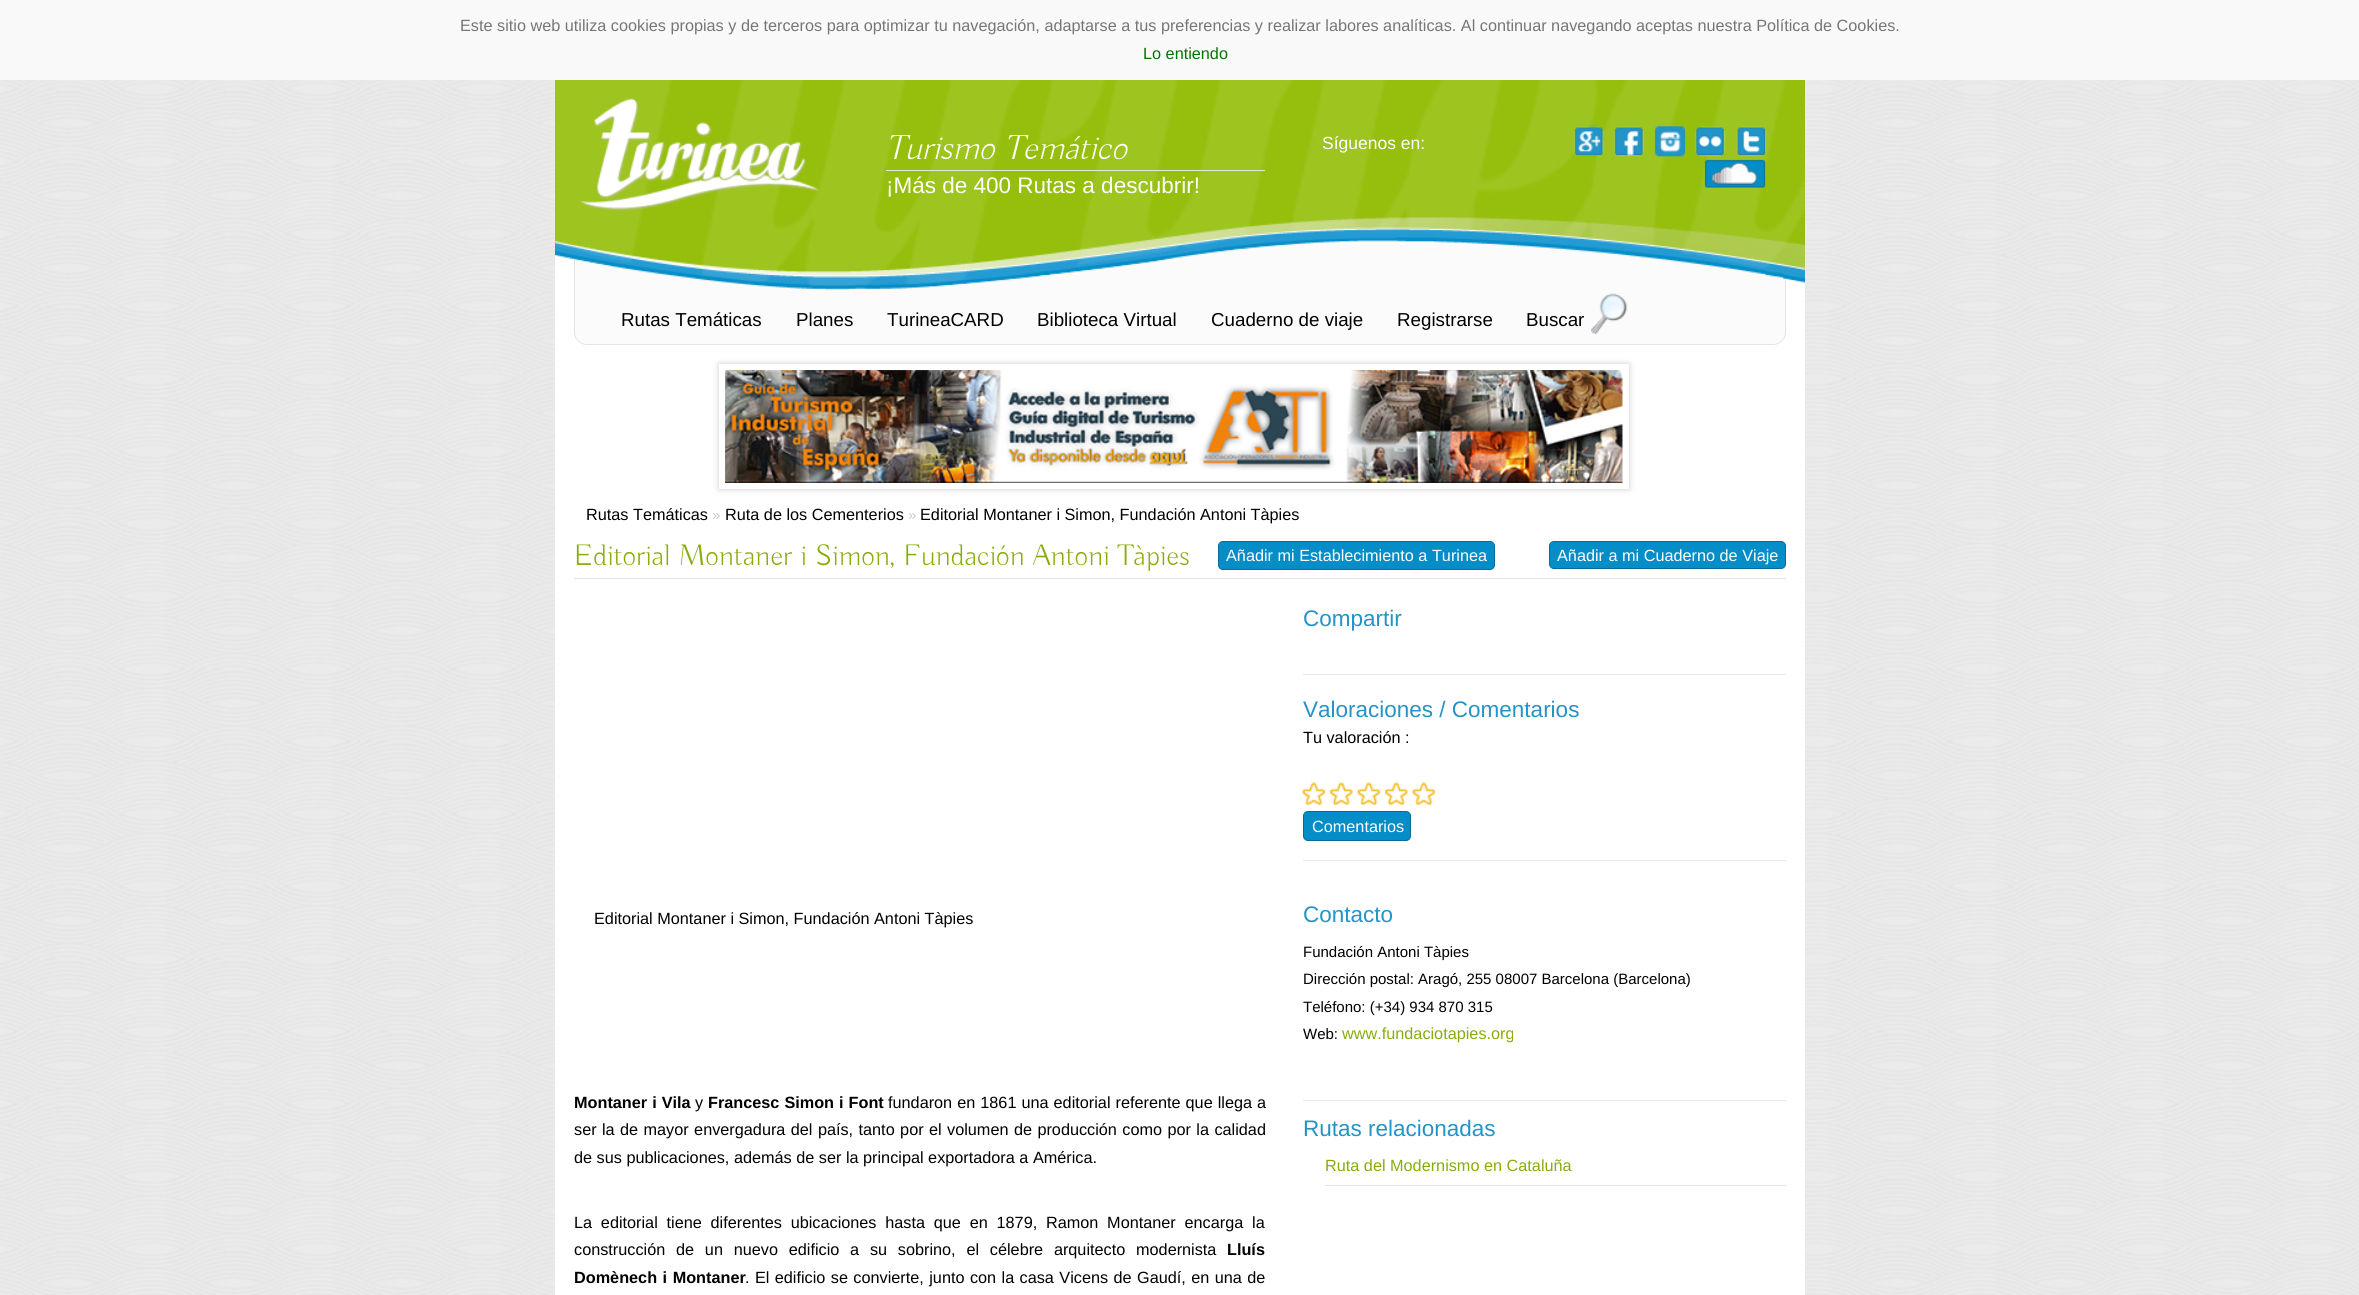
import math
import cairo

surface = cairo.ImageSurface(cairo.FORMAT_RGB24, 2359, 1295)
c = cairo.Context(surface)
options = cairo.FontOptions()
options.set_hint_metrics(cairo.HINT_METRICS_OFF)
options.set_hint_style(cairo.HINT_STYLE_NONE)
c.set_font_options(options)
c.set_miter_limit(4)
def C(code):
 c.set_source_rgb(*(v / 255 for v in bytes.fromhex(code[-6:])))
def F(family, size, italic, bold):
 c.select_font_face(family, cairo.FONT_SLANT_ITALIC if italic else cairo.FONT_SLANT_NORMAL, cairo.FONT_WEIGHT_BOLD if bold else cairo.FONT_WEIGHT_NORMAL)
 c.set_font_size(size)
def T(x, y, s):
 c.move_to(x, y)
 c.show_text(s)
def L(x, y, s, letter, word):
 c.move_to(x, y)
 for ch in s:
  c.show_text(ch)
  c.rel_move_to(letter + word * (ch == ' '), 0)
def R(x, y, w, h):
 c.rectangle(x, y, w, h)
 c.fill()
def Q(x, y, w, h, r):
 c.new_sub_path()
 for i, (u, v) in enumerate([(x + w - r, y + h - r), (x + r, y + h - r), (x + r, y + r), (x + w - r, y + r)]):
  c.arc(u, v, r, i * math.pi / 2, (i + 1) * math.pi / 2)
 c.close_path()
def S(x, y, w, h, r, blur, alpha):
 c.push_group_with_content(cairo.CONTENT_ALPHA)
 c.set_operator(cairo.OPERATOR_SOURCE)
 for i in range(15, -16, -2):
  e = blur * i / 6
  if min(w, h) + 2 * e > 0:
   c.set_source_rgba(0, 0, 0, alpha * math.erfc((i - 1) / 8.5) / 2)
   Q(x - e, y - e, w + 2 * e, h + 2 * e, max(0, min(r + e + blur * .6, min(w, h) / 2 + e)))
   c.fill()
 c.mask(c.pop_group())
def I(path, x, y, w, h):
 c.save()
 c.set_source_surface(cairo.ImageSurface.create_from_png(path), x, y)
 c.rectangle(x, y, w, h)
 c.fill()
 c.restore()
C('ffffff')
c.paint()
I('1.png',0,80,2359,1215)
C('f9f9f9')
R(0,0,2359,80)
F('Liberation Sans',16.25,0,0)
C('767676')
T(460,31,'Este sitio web utiliza cookies propias y de terceros para optimizar tu navegación, adaptarse a tus preferencias y realizar labores analíticas. Al continuar navegando aceptas nuestra Política de Cookies.')
C('007700')
T(1143,59,'Lo entiendo')
C('ffffff')
R(555,254,1250,1041)
C('fbfbfb')
Q(574.5,193.5,1211,151,12.5)
c.fill_preserve()
C('e5e5e6')
c.set_line_width(1)
c.stroke()
I('2.png',555,80,1250,211)
I('3.png',580,98,239,113)
F('Buda Light',35,1,0)
C('ffffff')
T(886,159,'Turismo Temático')
C('e6e3e3')
R(886,170,379,1)
F('Liberation Sans',22.5,0,0)
C('ffffff')
T(886,193,'¡Más de 400 Rutas a descubrir!')
F('Liberation Sans',17.5,0,0)
T(1322,149,'Síguenos en:')
I('4.png',1573,125,31,32)
I('5.png',1613,126,31,31)
I('6.png',1654,126,32,31)
I('7.png',1695,126,31,31)
I('8.png',1736,126,31,31)
I('9.png',1704,159,62,29)
F('Liberation Sans',18.75,0,0)
C('000000')
T(621,326,'Rutas Temáticas')
T(796,326,'Planes')
T(887,326,'TurineaCARD')
T(1037,326,'Biblioteca Virtual')
T(1211,326,'Cuaderno de viaje')
T(1397,326,'Registrarse')
I('10.png',1591,293,37,41)
T(1526,326,'Buscar')
C('cccccc')
S(719,364,910,125,0,3,1)
C('ffffff')
R(719,364,910,125)
I('11.png',725,370,898,113)
F('Liberation Sans',16.25,0,0)
C('000000')
T(586,520,'Rutas Temáticas')
F('Liberation Sans',15,0,0)
C('cacbce')
T(712,520,'»')
F('Liberation Sans',16.25,0,0)
C('000000')
T(725,520,'Ruta de los Cementerios')
F('Liberation Sans',15,0,0)
C('cacbce')
T(908,520,'»')
F('Liberation Sans',16.25,0,0)
C('000000')
T(920,520,'Editorial Montaner i Simon, Fundación Antoni Tàpies')
C('e5e5e6')
R(574,578,1212,1)
F('Buda Light',30,0,0)
C('88ac0d')
T(574,565,'Editorial Montaner i Simon, Fundación Antoni Tàpies')
C('048dc7')
Q(1218.5,541.5,276,28,4.5)
c.fill_preserve()
C('056d99')
c.stroke()
F('Liberation Sans',16.25,0,0)
C('ffffff')
T(1226,561,'Añadir mi Establecimiento a Turinea')
C('048dc7')
Q(1549.5,541.5,236,27,4.5)
c.fill_preserve()
C('056d99')
c.stroke()
C('ffffff')
T(1557,561,'Añadir a mi Cuaderno de Viaje')
C('000000')
T(594,924,'Editorial Montaner i Simon, Fundación Antoni Tàpies')
F('Liberation Sans',16.25,0,1)
L(574,1108,'Montaner i Vila',0,.5)
F('Liberation Sans',16.25,0,0)
T(695,1108,'y')
F('Liberation Sans',16.25,0,1)
L(708,1108,'Francesc Simon i Font',0,.5)
F('Liberation Sans',16.25,0,0)
L(888,1108,'fundaron en 1861 una editorial referente que llega a',0,.5)
L(574,1135,'ser la de mayor envergadura del país, tanto por el volumen de producción como por la calidad',0,.9)
T(574,1163,'de sus publicaciones, además de ser la principal exportadora a América.')
L(574,1228,'La editorial tiene diferentes ubicaciones hasta que en 1879, Ramon Montaner encarga la',0,4.25)
L(574,1255,'construcción de un nuevo edificio a su sobrino, el célebre arquitecto modernista',0,6.25)
F('Liberation Sans',16.25,0,1)
T(1227,1255,'Lluís')
L(574,1283,'Domènech i Montaner',0,1)
F('Liberation Sans',16.25,0,0)
L(745,1283,'. El edificio se convierte, junto con la casa Vicens de Gaudí, en una de',0,.9)
C('e8e8e8')
R(1303,674,483,1)
F('Liberation Sans',22.5,0,0)
C('2393c8')
T(1303,626,'Compartir')
C('e8e8e8')
R(1303,860,483,1)
C('2393c8')
T(1303,717,'Valoraciones / Comentarios')
F('Liberation Sans',16.25,0,0)
C('000000')
T(1303,743,'Tu valoración :')
I('12.png',1302,782,23,23)
I('13.png',1330,782,23,23)
I('12.png',1357,782,23,23)
I('13.png',1385,782,23,23)
I('12.png',1412,782,23,23)
C('048dc7')
Q(1303.5,811.5,107,29,4.5)
c.fill_preserve()
C('056d99')
c.stroke()
C('ffffff')
T(1312,832,'Comentarios')
C('e8e8e8')
R(1303,1100,483,1)
F('Liberation Sans',22.5,0,0)
C('2393c8')
T(1303,922,'Contacto')
F('Liberation Sans',15,0,0)
C('000000')
T(1303,957,'Fundación Antoni Tàpies')
T(1303,984,'Dirección postal: Aragó, 255 08007 Barcelona (Barcelona)')
T(1303,1012,'Teléfono: (+34) 934 870 315')
T(1303,1039,'Web:')
F('Liberation Sans',16.25,0,0)
C('88ac0d')
T(1342,1039,'www.fundaciotapies.org')
F('Liberation Sans',22.5,0,0)
C('2393c8')
T(1303,1136,'Rutas relacionadas')
C('e5e5e6')
R(1325,1185,461,1)
F('Liberation Sans',16.25,0,0)
C('88ac0d')
T(1325,1171,'Ruta del Modernismo en Cataluña')
surface.write_to_png('o.png')
